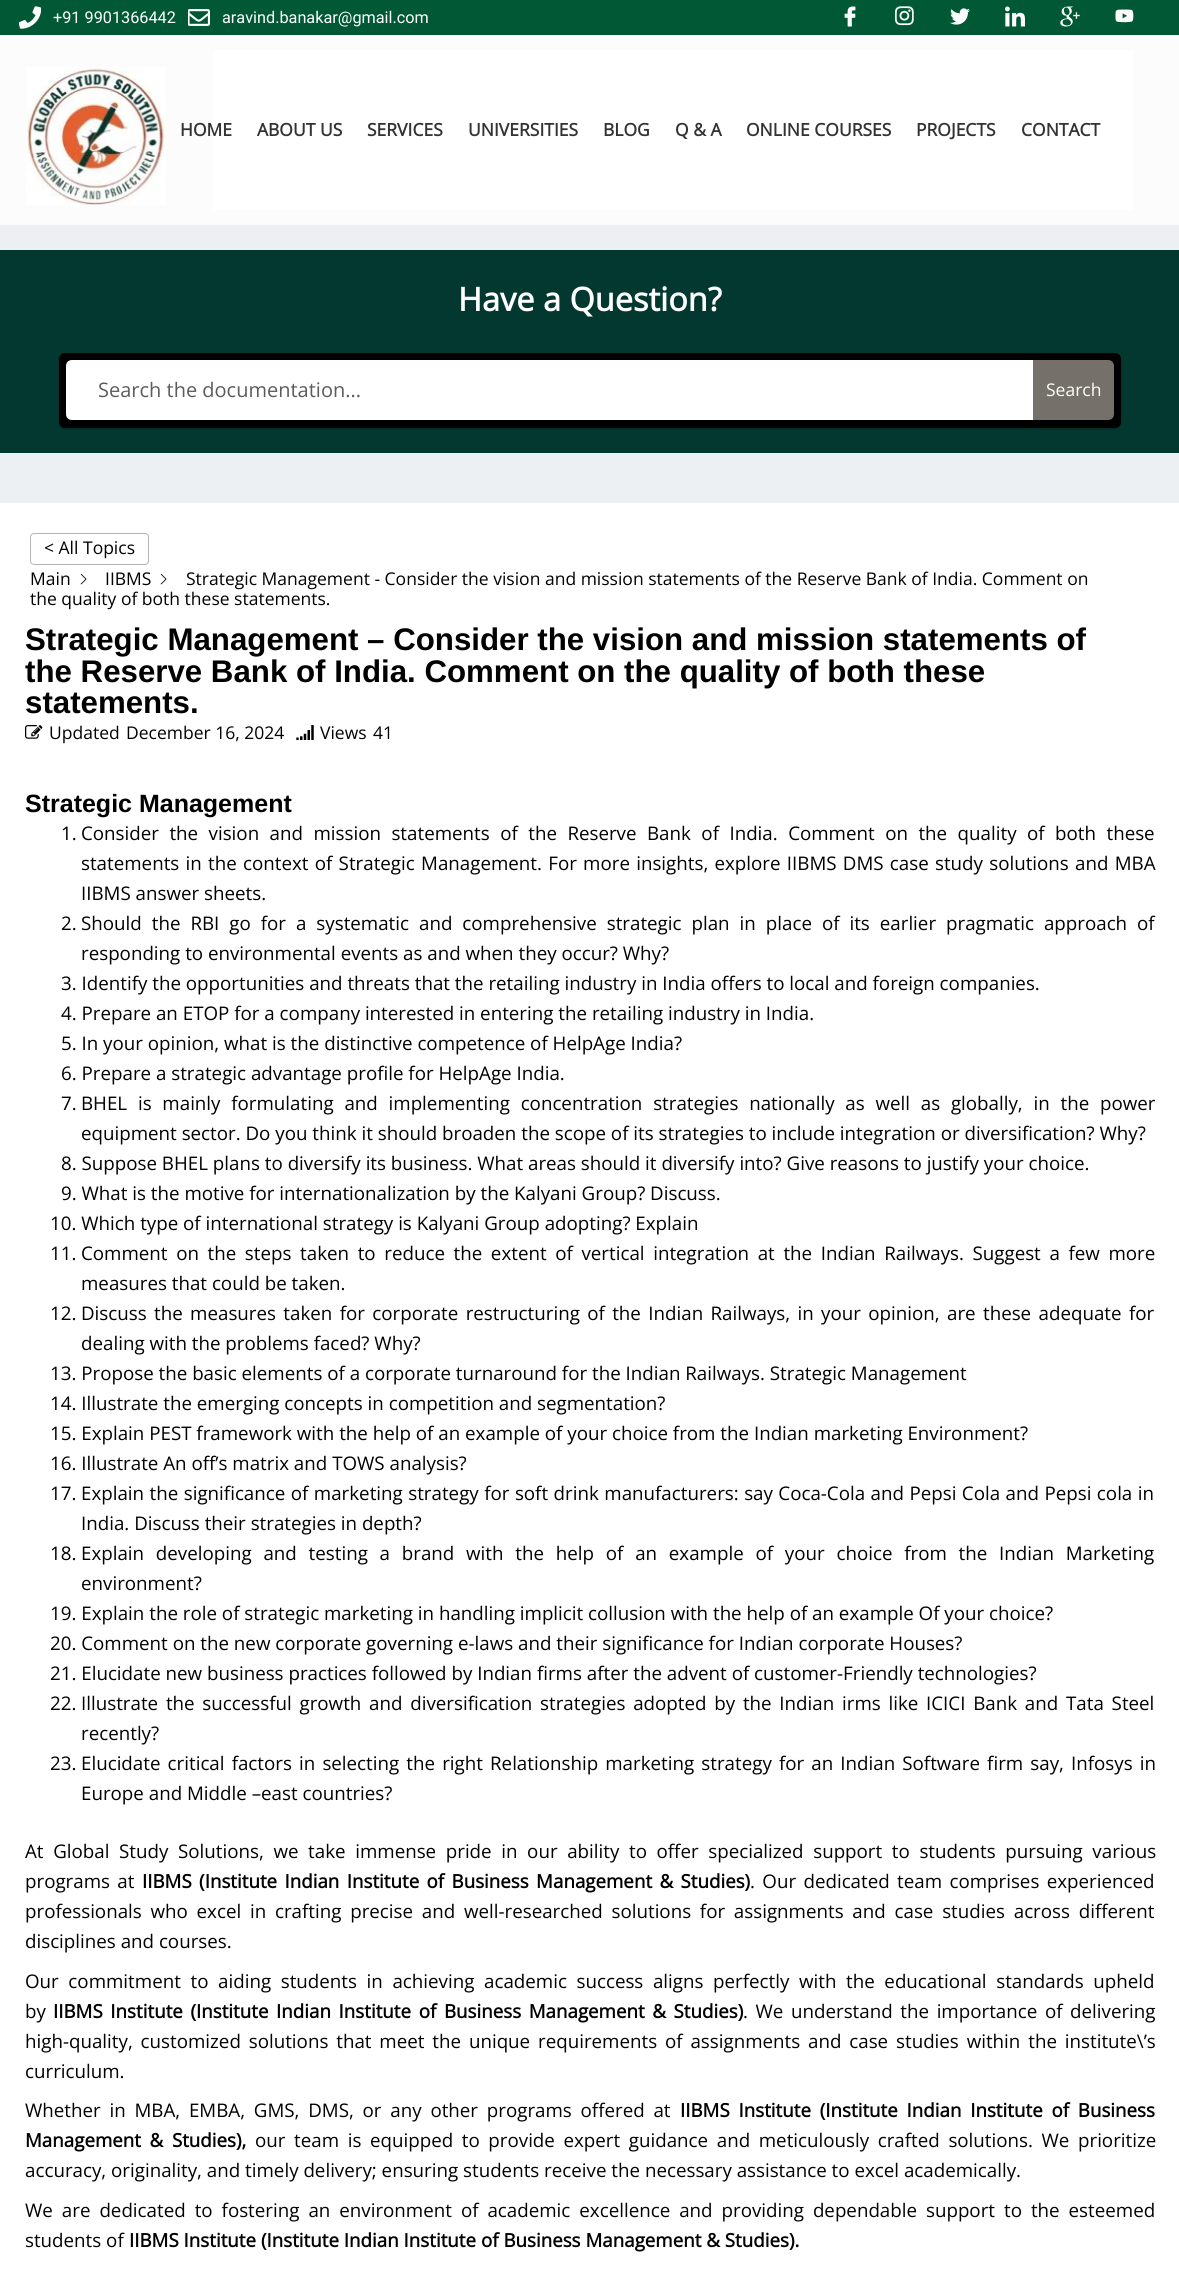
import math
import cairo

surface = cairo.ImageSurface(cairo.FORMAT_RGB24, 1179, 2269)
c = cairo.Context(surface)
options = cairo.FontOptions()
options.set_hint_metrics(cairo.HINT_METRICS_OFF)
options.set_hint_style(cairo.HINT_STYLE_NONE)
c.set_font_options(options)
c.set_miter_limit(4)
def C(code):
 c.set_source_rgb(*(v / 255 for v in bytes.fromhex(code[-6:])))
def F(family, size, italic, bold):
 c.select_font_face(family, cairo.FONT_SLANT_ITALIC if italic else cairo.FONT_SLANT_NORMAL, cairo.FONT_WEIGHT_BOLD if bold else cairo.FONT_WEIGHT_NORMAL)
 c.set_font_size(size)
def T(x, y, s):
 c.move_to(x, y)
 c.show_text(s)
def L(x, y, s, letter, word):
 c.move_to(x, y)
 for ch in s:
  c.show_text(ch)
  c.rel_move_to(letter + word * (ch == ' '), 0)
def R(x, y, w, h):
 c.rectangle(x, y, w, h)
 c.fill()
def Q(x, y, w, h, r):
 c.new_sub_path()
 for i, (u, v) in enumerate([(x + w - r, y + h - r), (x + r, y + h - r), (x + r, y + r), (x + w - r, y + r)]):
  c.arc(u, v, r, i * math.pi / 2, (i + 1) * math.pi / 2)
 c.close_path()
def S(x, y, w, h, r, blur, alpha):
 c.push_group_with_content(cairo.CONTENT_ALPHA)
 c.set_operator(cairo.OPERATOR_SOURCE)
 for i in range(15, -16, -2):
  e = blur * i / 6
  if min(w, h) + 2 * e > 0:
   c.set_source_rgba(0, 0, 0, alpha * math.erfc((i - 1) / 8.5) / 2)
   Q(x - e, y - e, w + 2 * e, h + 2 * e, max(0, min(r + e + blur * .6, min(w, h) / 2 + e)))
   c.fill()
 c.mask(c.pop_group())
def I(path, x, y, w, h):
 c.save()
 c.set_source_surface(cairo.ImageSurface.create_from_png(path), x, y)
 c.rectangle(x, y, w, h)
 c.fill()
 c.restore()
C('ecf0f2')
c.paint()
C('005934')
R(0,0,1179,35)
I('1.png',19,6,22,23)
F('Roboto',16.25,0,0)
C('ffffff')
T(53,23,'+91 9901366442')
I('2.png',188,9,22,17)
T(222,23,'aravind.banakar@gmail.com')
I('3.png',844,6,12,21)
I('4.png',895,6,19,20)
I('5.png',950,8,20,17)
I('6.png',1005,6,20,21)
I('7.png',1060,6,20,21)
I('8.png',1115,9,19,14)
C('fcfcfc')
R(0,35,1179,190)
I('9.png',26,67,140,138)
C('ffffff')
R(213,50,920,160)
F('Open Sans',17.5,0,1)
C('333333')
T(180,136,'HOME')
T(257,136,'ABOUT US')
T(367,136,'SERVICES')
T(468,136,'UNIVERSITIES')
T(603,136,'BLOG')
T(675,136,'Q & A')
T(746,136,'ONLINE COURSES')
T(916,136,'PROJECTS')
T(1021,136,'CONTACT')
C('033831')
R(0,250,1179,203)
F('Open Sans',32.5,0,1)
C('ffffff')
T(458,311,'Have a Question?')
C('000000')
S(59,354,1062,75,6,1,.32)
C('000000')
Q(59,353,1062,75,6)
c.fill()
C('ffffff')
c.new_path()
c.move_to(72,360)
c.line_to(1033,360)
c.line_to(1033,420)
c.line_to(72,420)
c.curve_to(68.5,420,66,417.5,66,414)
c.line_to(66,366)
c.curve_to(66,362.5,68.5,360,72,360)
c.close_path()
c.fill()
F('Open Sans',20,0,0)
C('5c5c5c')
T(98,397,'Search the documentation...')
C('757069')
c.new_path()
c.move_to(1033,360)
c.line_to(1108,360)
c.curve_to(1111.5,360,1114,362.5,1114,366)
c.line_to(1114,414)
c.curve_to(1114,417.5,1111.5,420,1108,420)
c.line_to(1033,420)
c.close_path()
c.fill()
F('Open Sans',17.5,0,0)
C('ffffff')
T(1046,396,'Search')
R(0,503,1179,1766)
Q(30.5,533.5,118,31,3.5)
C('b5b5b5')
c.set_line_width(1)
c.stroke()
C('000000')
T(44,554,'< All Topics')
T(30,585,'Main')
I('10.png',80,574,7,11)
T(105,585,'IIBMS')
I('10.png',160,574,7,11)
T(186,585,'Strategic Management - Consider the vision and mission statements of the Reserve Bank of India. Comment on')
T(30,605,'the quality of both these statements.')
F('Liberation Sans',31.25,0,1)
T(25,650,'Strategic Management – Consider the vision and mission statements of')
T(25,682,'the Reserve Bank of India. Comment on the quality of both these')
T(25,713,'statements.')
I('11.png',25,725,18,14)
F('Open Sans',17.5,0,0)
T(49,739,'Updated')
T(126,739,'December 16, 2024')
I('12.png',296,725,18,15)
T(320,739,'Views')
T(373,739,'41')
F('Liberation Sans',25,0,1)
T(25,812,'Strategic Management')
F('Open Sans',18.75,0,0)
T(61,840,'1.')
L(81,840,'Consider the vision and mission statements of the Reserve Bank of India. Comment on the quality of both these',0,5.6)
L(81,870,'statements in the context of Strategic Management. For more insights, explore IIBMS DMS case study solutions and MBA',0,1.4)
T(81,900,'IIBMS answer sheets.')
T(61,930,'2.')
L(81,930,'Should the RBI go for a systematic and comprehensive strategic plan in place of its earlier pragmatic approach of',0,5.1)
T(81,960,'responding to environmental events as and when they occur? Why?')
T(61,990,'3. Identify the opportunities and threats that the retailing industry in India offers to local and foreign companies.')
T(61,1020,'4. Prepare an ETOP for a company interested in entering the retailing industry in India.')
T(61,1050,'5. In your opinion, what is the distinctive competence of HelpAge India?')
T(61,1080,'6. Prepare a strategic advantage profile for HelpAge India.')
T(61,1110,'7.')
L(81,1110,'BHEL is mainly formulating and implementing concentration strategies nationally as well as globally, in the power',0,5.9)
T(81,1140,'equipment sector. Do you think it should broaden the scope of its strategies to include integration or diversification? Why?')
T(61,1170,'8. Suppose BHEL plans to diversify its business. What areas should it diversify into? Give reasons to justify your choice.')
T(61,1200,'9. What is the motive for internationalization by the Kalyani Group? Discuss.')
T(50,1230,'10. Which type of international strategy is Kalyani Group adopting? Explain')
T(50,1260,'11.')
L(81,1260,'Comment on the steps taken to reduce the extent of vertical integration at the Indian Railways. Suggest a few more',0,3.75)
T(81,1290,'measures that could be taken.')
T(50,1320,'12.')
L(81,1320,'Discuss the measures taken for corporate restructuring of the Indian Railways, in your opinion, are these adequate for',0,2.5)
T(81,1350,'dealing with the problems faced? Why?')
T(50,1380,'13. Propose the basic elements of a corporate turnaround for the Indian Railways. Strategic Management')
T(50,1410,'14. Illustrate the emerging concepts in competition and segmentation?')
T(50,1440,'15. Explain PEST framework with the help of an example of your choice from the Indian marketing Environment?')
T(50,1470,'16. Illustrate An off’s matrix and TOWS analysis?')
T(50,1500,'17.')
L(81,1500,'Explain the significance of marketing strategy for soft drink manufacturers: say Coca-Cola and Pepsi Cola and Pepsi cola in',0,.6)
T(81,1530,'India. Discuss their strategies in depth?')
T(50,1560,'18.')
L(81,1560,'Explain developing and testing a brand with the help of an example of your choice from the Indian Marketing',0,6.9)
T(81,1590,'environment?')
T(50,1620,'19. Explain the role of strategic marketing in handling implicit collusion with the help of an example Of your choice?')
T(50,1650,'20. Comment on the new corporate governing e-laws and their significance for Indian corporate Houses?')
T(50,1680,'21. Elucidate new business practices followed by Indian firms after the advent of customer-Friendly technologies?')
T(50,1710,'22.')
L(81,1710,'Illustrate the successful growth and diversification strategies adopted by the Indian irms like ICICI Bank and Tata Steel',0,2.9)
T(81,1740,'recently?')
T(50,1770,'23.')
L(81,1770,'Elucidate critical factors in selecting the right Relationship marketing strategy for an Indian Software firm say, Infosys in',0,2.25)
T(81,1800,'Europe and Middle –east countries?')
L(25,1858,'At Global Study Solutions, we take immense pride in our ability to offer specialized support to students pursuing various',0,4.75)
L(25,1888,'programs at',0,2.5)
F('Open Sans',18.75,0,1)
L(142,1888,'IIBMS (Institute Indian Institute of Business Management & Studies)',0,2.5)
F('Open Sans',18.75,0,0)
L(750,1888,'. Our dedicated team comprises experienced',0,2.5)
L(25,1918,'professionals who excel in crafting precise and well-researched solutions for assignments and case studies across different',0,3.9)
T(25,1948,'disciplines and courses.')
L(25,1988,'Our commitment to aiding students in achieving academic success aligns perfectly with the educational standards upheld',0,4.75)
T(25,2018,'by')
F('Open Sans',18.75,0,1)
L(53,2018,'IIBMS Institute (Institute Indian Institute of Business Management & Studies)',0,2.75)
F('Open Sans',18.75,0,0)
L(743,2018,'. We understand the importance of delivering',0,2.75)
L(25,2048,'high-quality, customized solutions that meet the unique requirements of assignments and case studies within the institute\\’s',0,3)
T(25,2078,'curriculum.')
L(25,2117,'Whether in MBA, EMBA, GMS, DMS, or any other programs offered at',0,3.9)
F('Open Sans',18.75,0,1)
L(680,2117,'IIBMS Institute (Institute Indian Institute of Business',0,3.9)
L(25,2147,'Management & Studies),',0,3.75)
F('Open Sans',18.75,0,0)
L(255,2147,'our team is equipped to provide expert guidance and meticulously crafted solutions. We prioritize',0,3.75)
T(25,2177,'accuracy, originality, and timely delivery; ensuring students receive the necessary assistance to excel academically.')
L(25,2217,'We are dedicated to fostering an environment of academic excellence and providing dependable support to the esteemed',0,4.1)
T(25,2247,'students of')
F('Open Sans',18.75,0,1)
T(129,2247,'IIBMS Institute (Institute Indian Institute of Business Management & Studies).')
surface.write_to_png('o.png')
